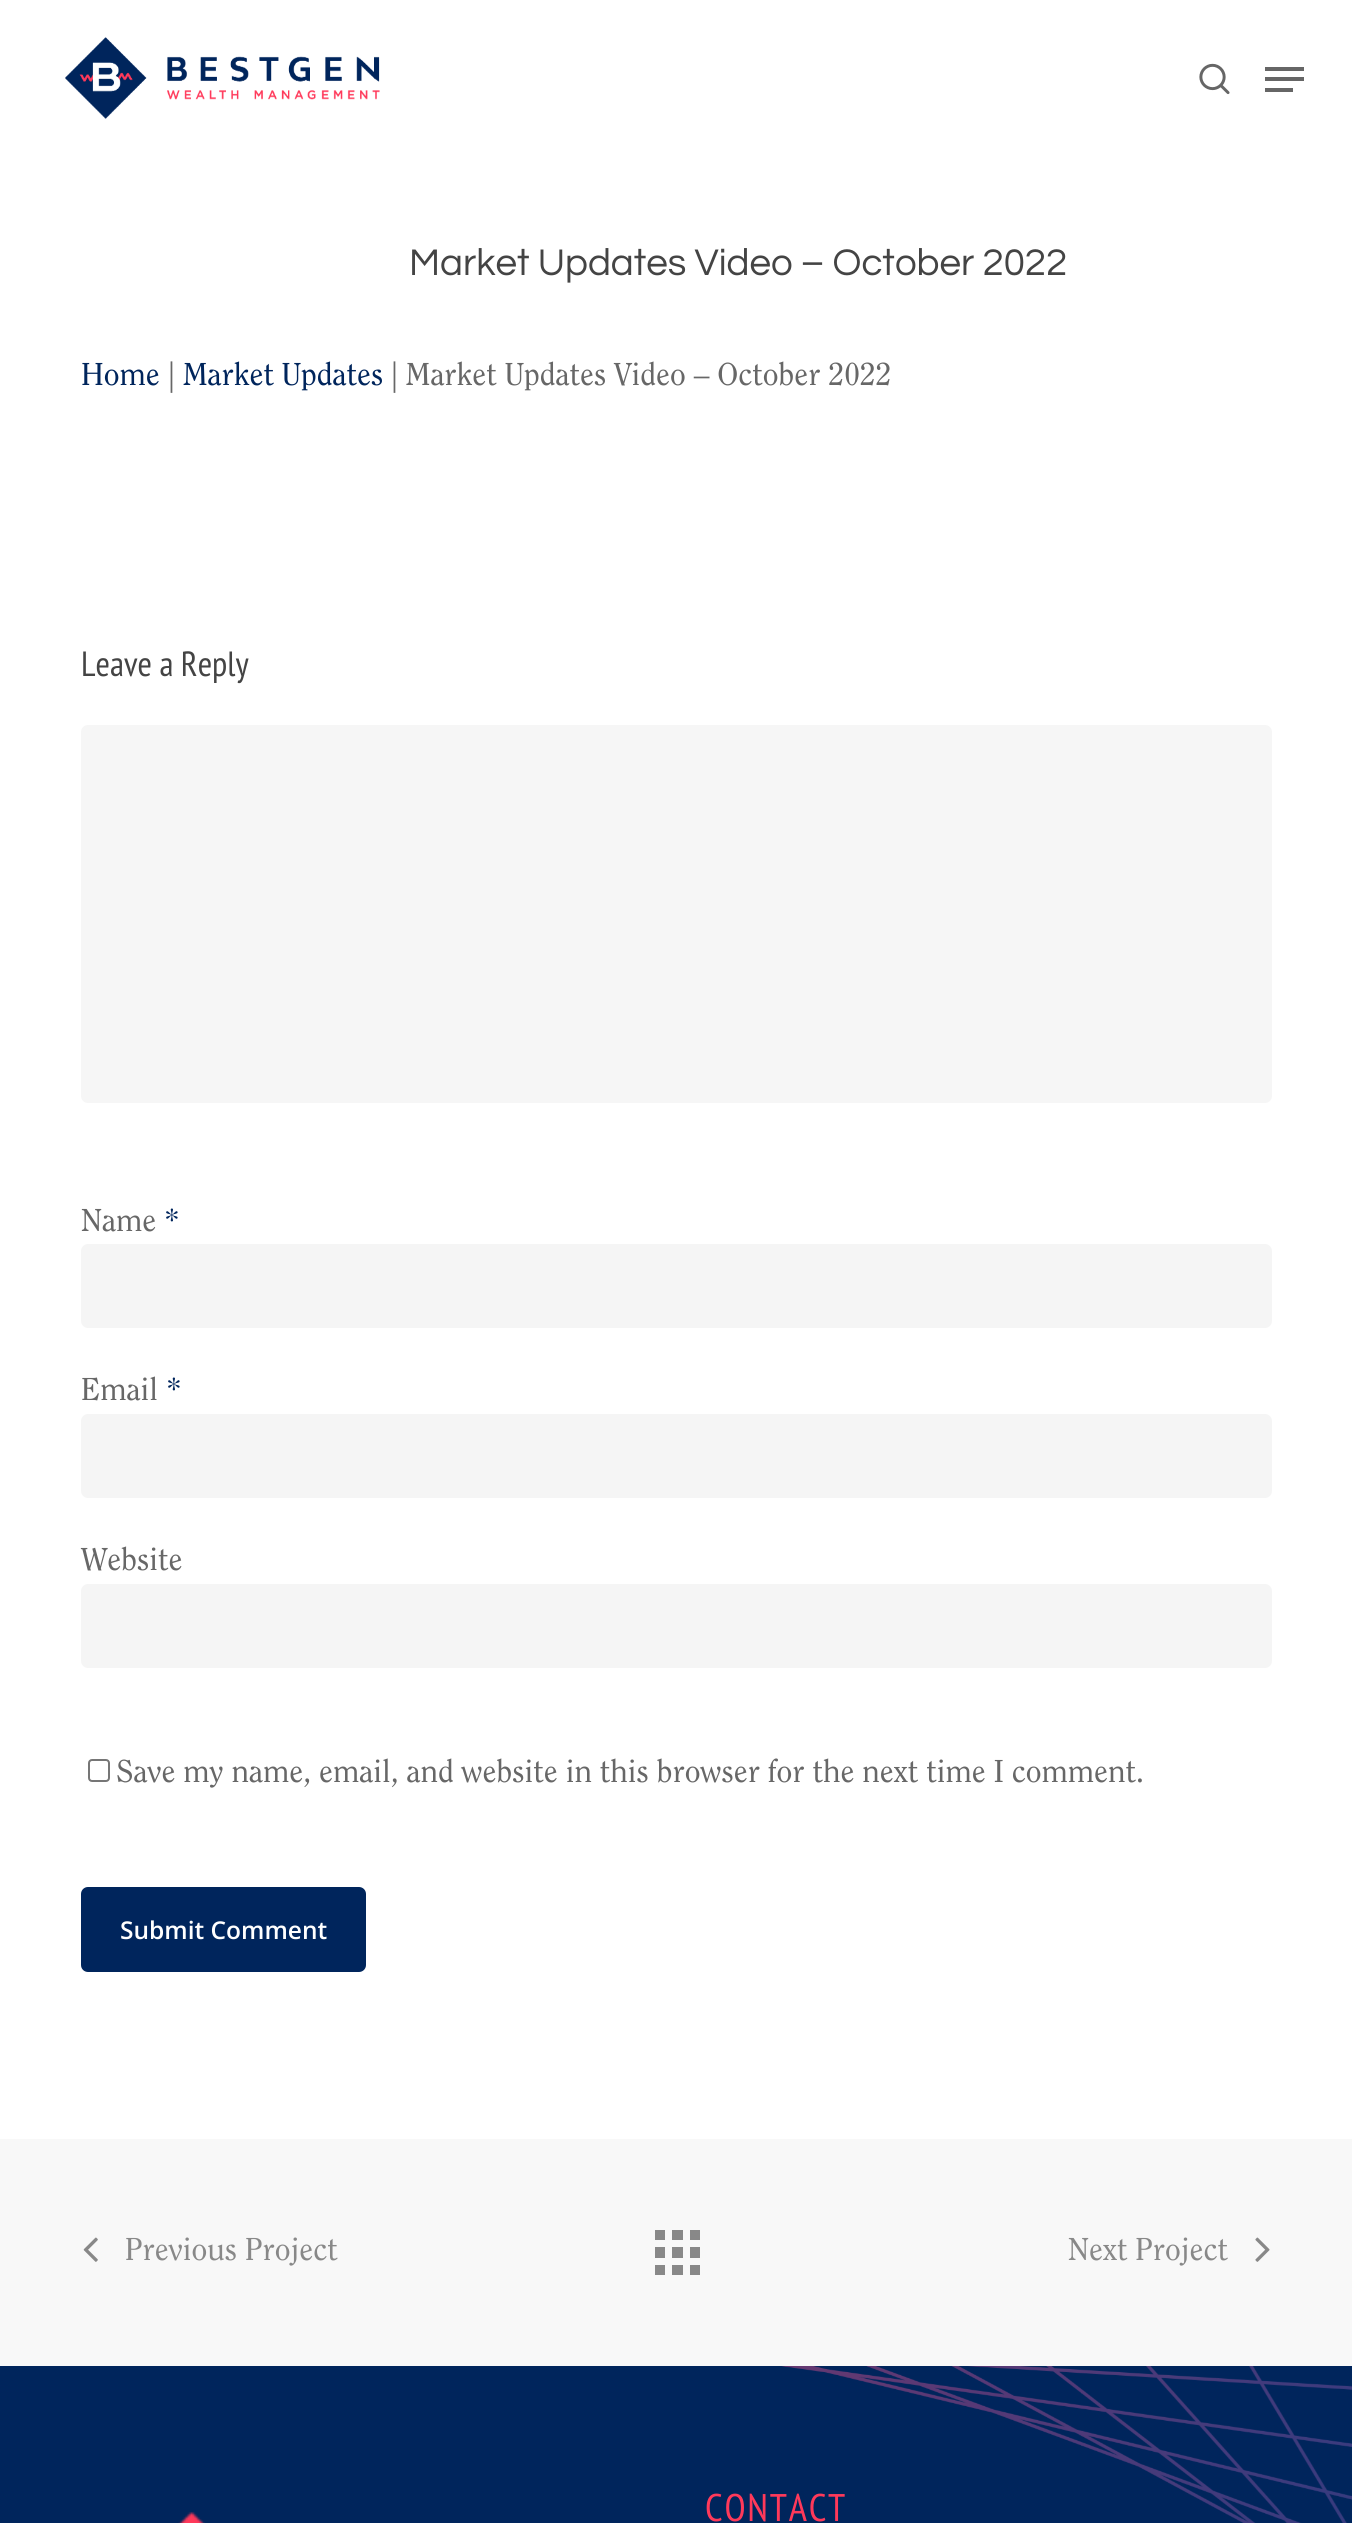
import math
import cairo

surface = cairo.ImageSurface(cairo.FORMAT_RGB24, 1352, 2523)
c = cairo.Context(surface)
options = cairo.FontOptions()
options.set_hint_metrics(cairo.HINT_METRICS_OFF)
options.set_hint_style(cairo.HINT_STYLE_NONE)
c.set_font_options(options)
c.set_miter_limit(4)
def C(code):
 c.set_source_rgb(*(v / 255 for v in bytes.fromhex(code[-6:])))
def F(family, size, italic, bold):
 c.select_font_face(family, cairo.FONT_SLANT_ITALIC if italic else cairo.FONT_SLANT_NORMAL, cairo.FONT_WEIGHT_BOLD if bold else cairo.FONT_WEIGHT_NORMAL)
 c.set_font_size(size)
def T(x, y, s):
 c.move_to(x, y)
 c.show_text(s)
def L(x, y, s, letter, word):
 c.move_to(x, y)
 for ch in s:
  c.show_text(ch)
  c.rel_move_to(letter + word * (ch == ' '), 0)
def R(x, y, w, h):
 c.rectangle(x, y, w, h)
 c.fill()
def Q(x, y, w, h, r):
 c.new_sub_path()
 for i, (u, v) in enumerate([(x + w - r, y + h - r), (x + r, y + h - r), (x + r, y + r), (x + w - r, y + r)]):
  c.arc(u, v, r, i * math.pi / 2, (i + 1) * math.pi / 2)
 c.close_path()
def I(path, x, y, w, h):
 c.save()
 c.set_source_surface(cairo.ImageSurface.create_from_png(path), x, y)
 c.rectangle(x, y, w, h)
 c.fill()
 c.restore()
C('ffffff')
c.paint()
I('1.png',65,37,315,82)
I('2.png',1199,63,31,32)
C('666666')
R(1265,67,39,4)
R(1265,88,28,4)
R(1265,77,39,4)
F('Questrial',38.5,0,0)
C('444444')
T(409,275,'Market Updates Video – October 2022')
F('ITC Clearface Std',31.5,0,0)
C('00255c')
T(81,385,'Home')
C('676767')
T(168,385,'|')
C('00255c')
T(183,385,'Market Updates')
C('676767')
T(391,385,'| Market Updates Video – October 2022')
F('PT Sans Narrow',35,0,0)
C('444444')
T(81,676,'Leave a Reply')
C('f6f6f6')
Q(81,725,1191,378,7)
c.fill()
F('ITC Clearface Std',31.5,0,0)
C('676767')
T(81,1231,'Name')
C('00255c')
T(164,1231,'*')
C('f5f5f5')
Q(81,1244,1191,84,7)
c.fill()
C('676767')
T(81,1400,'Email')
C('00255c')
T(166,1400,'*')
C('f5f5f5')
Q(81,1414,1191,84,7)
c.fill()
C('676767')
T(81,1570,'Website')
C('f5f5f5')
Q(81,1584,1191,84,7)
c.fill()
Q(89,1760,20,21,3)
C('767676')
c.stroke()
C('676767')
T(116,1782,'Save my name, email, and website in this browser for the next time I comment.')
C('00255c')
Q(81,1887,285,85,7)
c.fill()
F('Open Sans SemiBold',24.5,0,0)
C('ffffff')
T(120,1939,'Submit Comment')
C('f8f8f8')
R(0,2139,1352,227)
C('888888')
R(690,2265,10,10)
R(672,2265,11,10)
R(655,2230,10,10)
R(672,2230,11,10)
R(690,2230,10,10)
R(690,2247,10,11)
R(655,2265,10,10)
R(655,2247,10,11)
R(672,2247,11,11)
I('3.png',83,2237,15,25)
F('ITC Clearface Std',31.5,0,0)
T(125,2260,'Previous Project')
T(1068,2260,'Next Project')
I('4.png',1255,2237,15,25)
C('00255c')
R(0,2366,1352,157)
I('5.png',781,2366,571,157)
I('6.png',178,2511,27,12)
F('PT Sans Narrow',38.5,0,0)
C('ff395a')
L(705,2521,'CONTACT',1.75,0)
surface.write_to_png('o.png')
